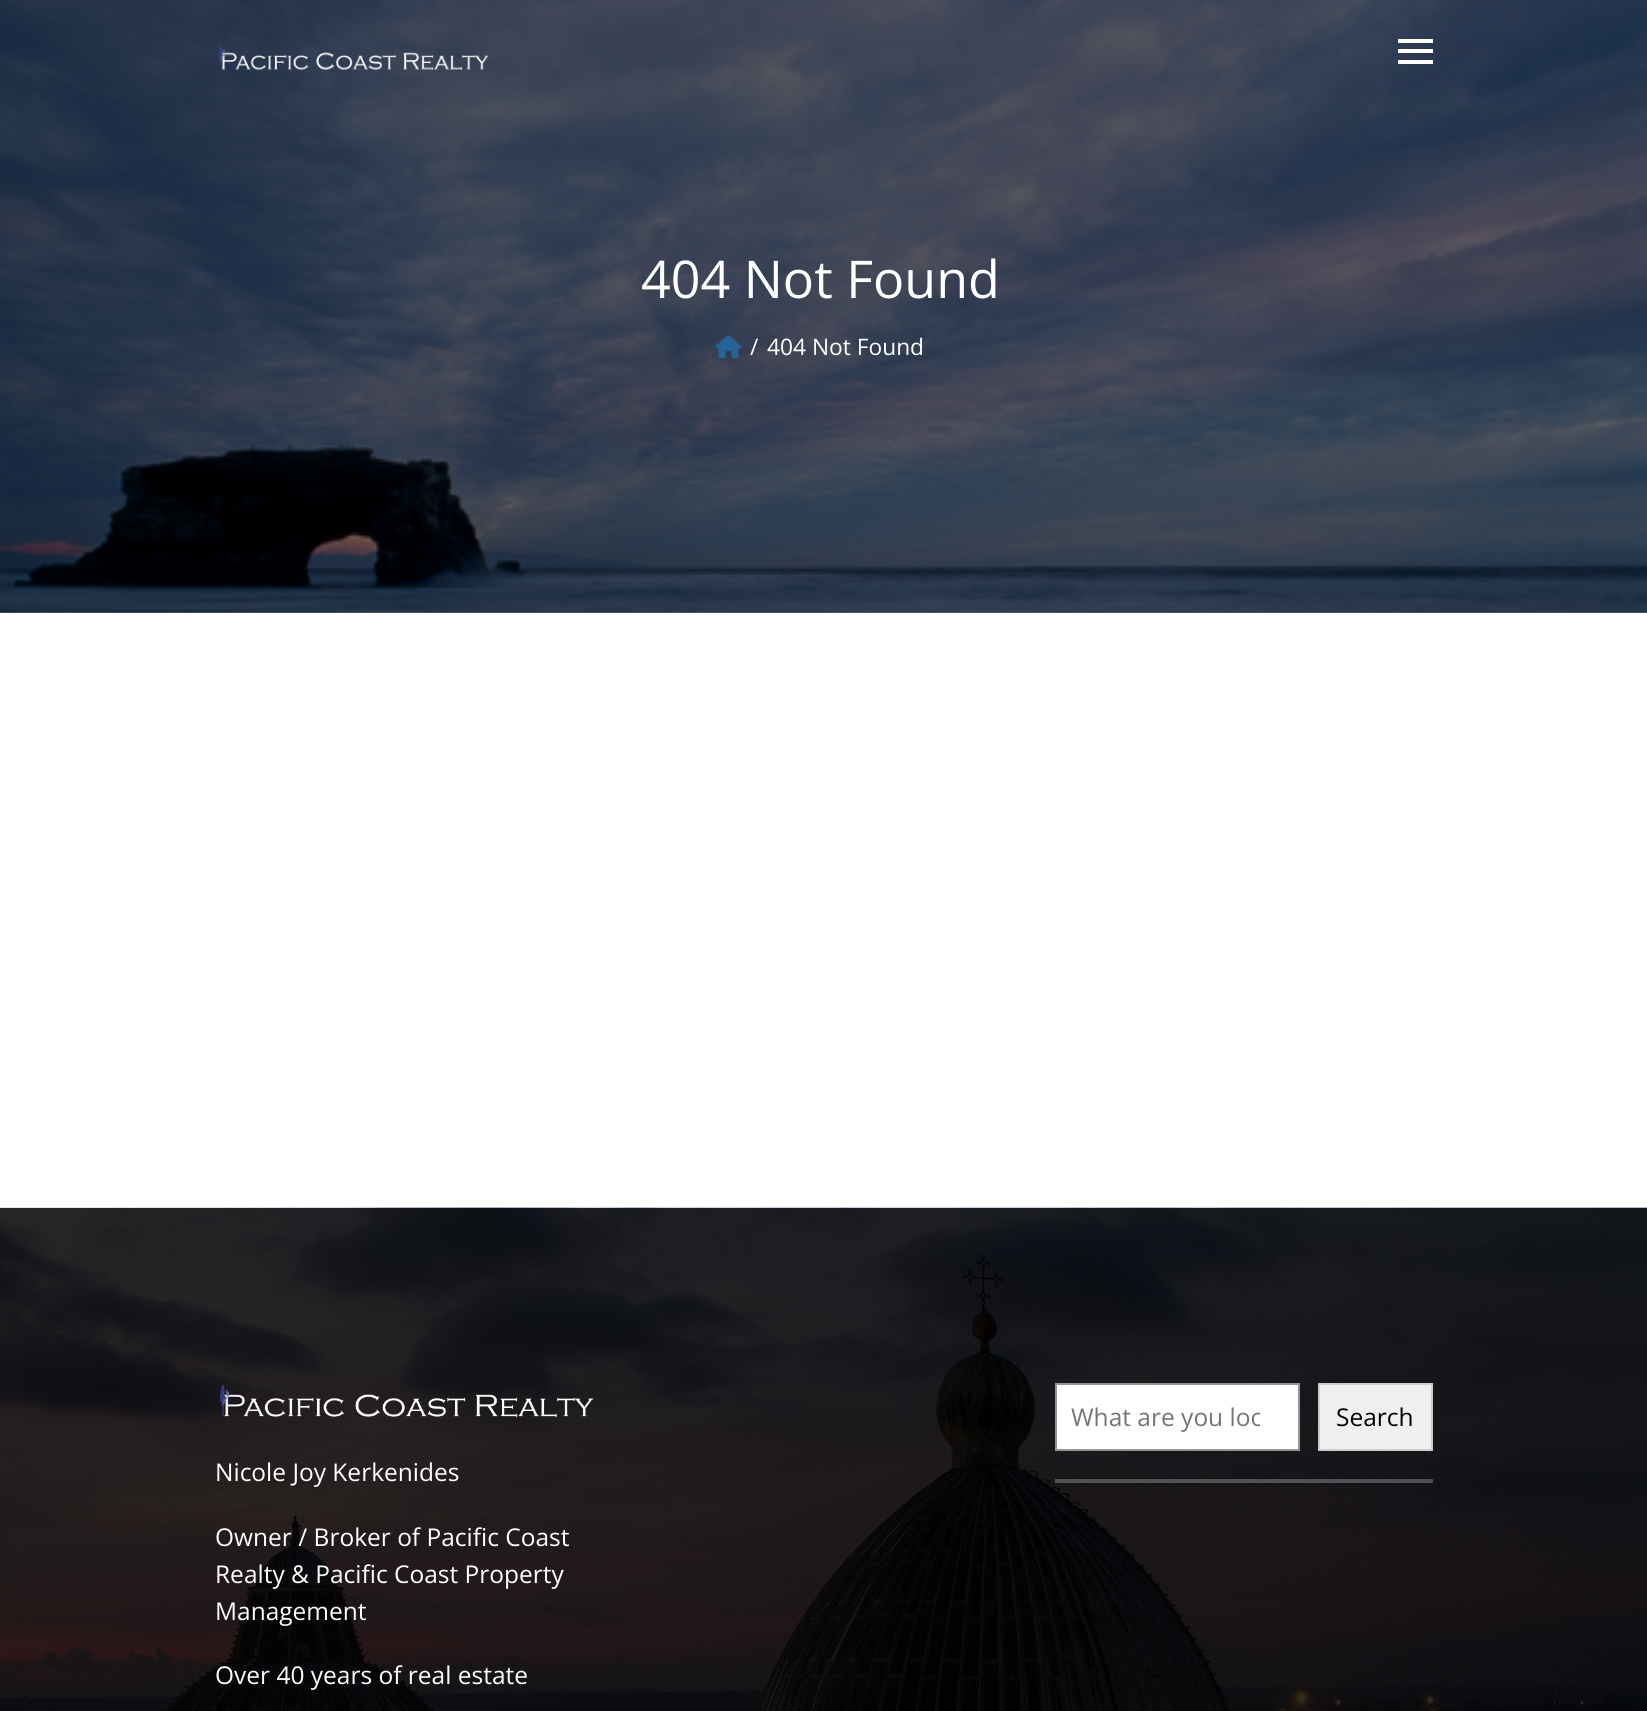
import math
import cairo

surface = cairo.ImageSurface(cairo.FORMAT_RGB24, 1647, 1711)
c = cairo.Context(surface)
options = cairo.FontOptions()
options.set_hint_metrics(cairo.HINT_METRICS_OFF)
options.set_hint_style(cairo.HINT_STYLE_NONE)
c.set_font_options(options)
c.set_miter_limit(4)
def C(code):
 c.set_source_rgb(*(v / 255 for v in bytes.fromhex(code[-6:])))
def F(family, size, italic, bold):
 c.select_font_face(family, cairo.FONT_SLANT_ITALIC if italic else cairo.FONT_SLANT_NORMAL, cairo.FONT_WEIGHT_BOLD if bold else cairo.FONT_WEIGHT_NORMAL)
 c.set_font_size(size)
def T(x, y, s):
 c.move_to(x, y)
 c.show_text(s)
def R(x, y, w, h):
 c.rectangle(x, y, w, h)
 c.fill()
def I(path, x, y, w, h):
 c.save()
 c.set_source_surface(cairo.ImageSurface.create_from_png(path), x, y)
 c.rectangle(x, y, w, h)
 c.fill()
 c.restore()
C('ffffff')
c.paint()
C('666666')
R(0,612,1647,1)
I('2.png',0,0,1647,613)
I('1.png',218,45,271,26)
C('ffffff')
R(1398,39,35,4)
R(1398,60,35,4)
R(1398,49,35,4)
F('Open Sans',52,0,0)
T(641,298,'404 Not Found')
I('3.png',715,335,27,24)
F('Open Sans',22.75,0,0)
T(750,355,'/')
T(767,355,'404 Not Found')
I('4.png',0,1207,1647,504)
c.rectangle(1056,1384,243,66)
c.fill_preserve()
C('949494')
c.stroke()
c.save()
c.rectangle(1071,1400,189,33)
c.clip()
F('Open Sans',24.5,0,0)
C('757575')
T(1071,1426,'What are you loo')
c.restore()
C('efefef')
c.rectangle(1319,1384,113,66)
c.fill_preserve()
C('cccccc')
c.stroke()
F('Open Sans',24.5,0,0)
C('000000')
T(1336,1426,'Search')
c.set_source_rgba(1,1,1,0.25)
R(1055,1479,378,4)
I('5.png',219,1384,375,34)
C('ffffff')
T(215,1481,'Nicole Joy Kerkenides')
T(215,1546,'Owner / Broker of Pacific Coast')
T(215,1583,'Realty & Pacific Coast Property')
T(215,1620,'Management')
T(215,1684,'Over 40 years of real estate')
surface.write_to_png('o.png')
